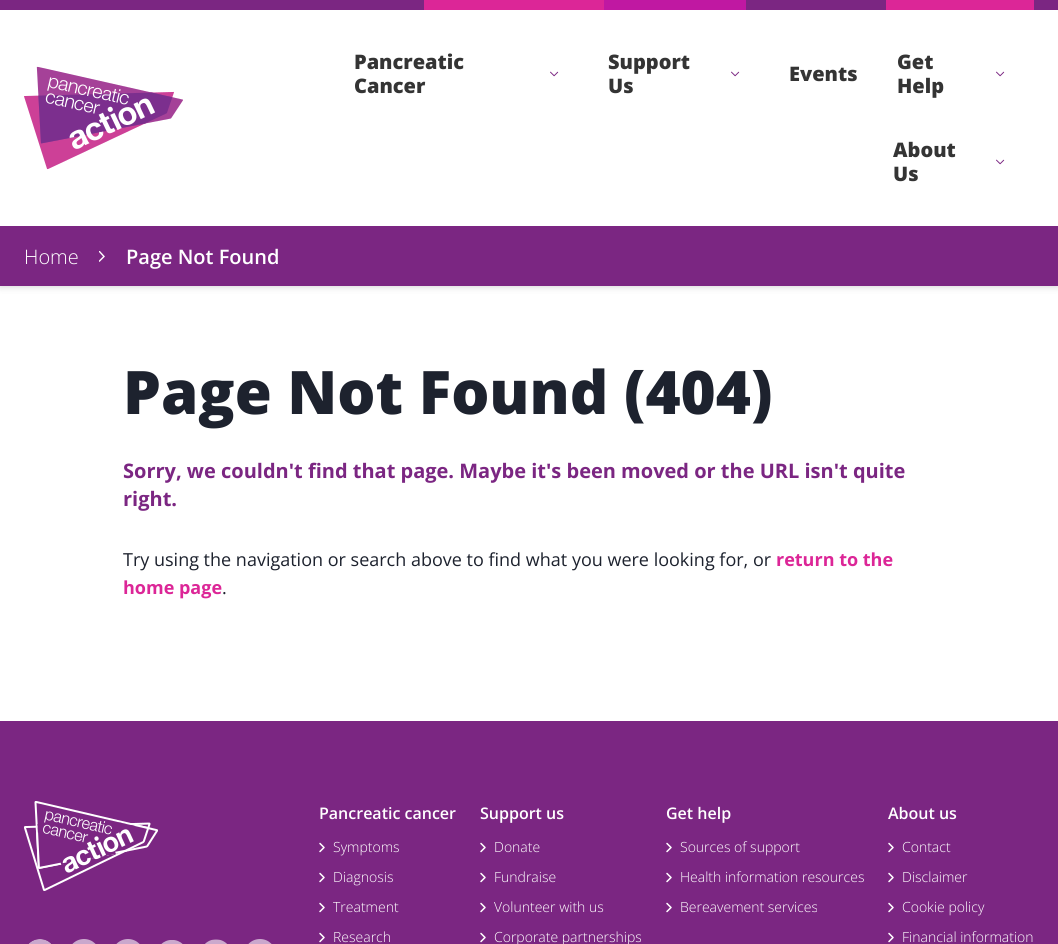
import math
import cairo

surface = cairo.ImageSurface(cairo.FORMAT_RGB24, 1058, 944)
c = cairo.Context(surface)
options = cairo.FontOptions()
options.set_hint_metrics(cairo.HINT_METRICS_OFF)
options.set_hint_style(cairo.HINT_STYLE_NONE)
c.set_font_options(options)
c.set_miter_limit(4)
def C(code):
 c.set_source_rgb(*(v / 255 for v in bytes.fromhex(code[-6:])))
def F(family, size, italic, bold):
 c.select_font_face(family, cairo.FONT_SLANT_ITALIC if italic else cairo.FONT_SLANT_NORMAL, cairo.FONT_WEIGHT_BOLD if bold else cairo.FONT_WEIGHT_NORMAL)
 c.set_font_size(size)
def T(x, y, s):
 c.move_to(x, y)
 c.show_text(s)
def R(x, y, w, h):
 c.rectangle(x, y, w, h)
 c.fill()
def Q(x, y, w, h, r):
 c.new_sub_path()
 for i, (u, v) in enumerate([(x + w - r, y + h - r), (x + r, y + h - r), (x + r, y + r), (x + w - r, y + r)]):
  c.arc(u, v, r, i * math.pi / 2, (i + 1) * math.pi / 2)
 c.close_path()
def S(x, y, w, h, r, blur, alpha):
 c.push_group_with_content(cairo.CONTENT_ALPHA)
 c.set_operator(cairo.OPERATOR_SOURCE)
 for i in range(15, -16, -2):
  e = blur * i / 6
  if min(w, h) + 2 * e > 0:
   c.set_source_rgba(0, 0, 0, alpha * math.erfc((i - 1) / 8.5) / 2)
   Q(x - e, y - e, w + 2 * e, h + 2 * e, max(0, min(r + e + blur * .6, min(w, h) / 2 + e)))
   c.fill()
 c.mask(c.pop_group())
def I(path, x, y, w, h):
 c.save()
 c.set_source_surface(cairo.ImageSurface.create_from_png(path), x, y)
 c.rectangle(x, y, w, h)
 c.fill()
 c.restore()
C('ffffff')
c.paint()
C('7b2682')
R(0,0,1058,10)
C('dc2697')
R(424,0,180,10)
C('c018a2')
R(604,0,142,10)
C('dc2697')
R(886,0,148,10)
I('1.png',24,66,159,104)
F('Open Sans ExtraBold',20,0,0)
C('343434')
T(354,69,'Pancreatic')
T(354,93,'Cancer')
I('2.png',550,71,9,6)
T(608,69,'Support')
T(608,93,'Us')
I('2.png',731,71,9,6)
T(789,81,'Events')
T(897,69,'Get')
T(897,93,'Help')
I('2.png',996,71,9,6)
T(893,157,'About')
T(893,181,'Us')
I('2.png',996,159,9,6)
c.save()
c.rectangle(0,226,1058,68)
c.clip()
C('000000')
S(0,226,1058,60,0,4,.2)
c.restore()
C('7b2682')
R(0,226,1058,60)
F('Open Sans Light',20,0,0)
C('ffffff')
T(24,264,'Home')
c.save()
c.rectangle(99,251,7,12)
c.clip()
c.new_path()
c.move_to(99,251)
c.line_to(104,256.5)
c.line_to(99,261.5)
c.set_line_width(1.4)
c.stroke()
c.restore()
F('Open Sans SemiBold',20,0,0)
T(126,264,'Page Not Found')
F('Open Sans ExtraBold',60,0,0)
C('1d222e')
T(123,414,'Page Not Found (404)')
F('Open Sans',20,0,1)
C('7b2682')
T(123,478,'Sorry, we couldn\'t find that page. Maybe it\'s been moved or the URL isn\'t quite')
T(123,506,'right.')
F('Open Sans',18,0,0)
C('1d222e')
T(123,566,'Try using the navigation or search above to find what you were looking for, or')
F('Open Sans',18,0,1)
C('dc2697')
T(776,566,'return to the')
T(123,594,'home page')
F('Open Sans',18,0,0)
C('1d222e')
T(222,594,'.')
C('7b2682')
R(0,721,1058,223)
I('3.png',24,801,134,90)
I('4.png',28,939,23,5)
I('5.png',72,939,24,5)
I('5.png',116,939,24,5)
I('6.png',161,940,22,4)
I('7.png',205,939,22,5)
I('5.png',248,939,24,5)
F('Open Sans SemiBold',16,0,0)
C('ffffff')
T(319,819,'Pancreatic cancer')
c.new_path()
c.move_to(320,851.5)
c.line_to(324,847.5)
c.line_to(320,843.5)
c.move_to(320,881.5)
c.line_to(324,877.5)
c.line_to(320,873.5)
c.set_line_width(1.5)
c.set_line_cap(cairo.LINE_CAP_ROUND)
c.set_line_join(cairo.LINE_JOIN_ROUND)
c.stroke()
F('Open Sans Light',14,0,0)
T(333,852,'Symptoms')
T(333,882,'Diagnosis')
c.new_path()
c.move_to(320,911.5)
c.line_to(324,907.5)
c.line_to(320,903.5)
c.move_to(320,941.5)
c.line_to(324,937.5)
c.line_to(320,933.5)
c.stroke()
T(333,912,'Treatment')
T(333,942,'Research')
F('Open Sans SemiBold',16,0,0)
T(480,819,'Support us')
c.new_path()
c.move_to(481,851.5)
c.line_to(485,847.5)
c.line_to(481,843.5)
c.move_to(481,881.5)
c.line_to(485,877.5)
c.line_to(481,873.5)
c.stroke()
F('Open Sans Light',14,0,0)
T(494,852,'Donate')
T(494,882,'Fundraise')
c.new_path()
c.move_to(481,911.5)
c.line_to(485,907.5)
c.line_to(481,903.5)
c.move_to(481,941.5)
c.line_to(485,937.5)
c.line_to(481,933.5)
c.stroke()
T(494,912,'Volunteer with us')
T(494,942,'Corporate partnerships')
F('Open Sans SemiBold',16,0,0)
T(666,819,'Get help')
c.new_path()
c.move_to(667,851.5)
c.line_to(671,847.5)
c.line_to(667,843.5)
c.move_to(667,881.5)
c.line_to(671,877.5)
c.line_to(667,873.5)
c.stroke()
F('Open Sans Light',14,0,0)
T(680,852,'Sources of support')
T(680,882,'Health information resources')
c.new_path()
c.move_to(667,911.5)
c.line_to(671,907.5)
c.line_to(667,903.5)
c.stroke()
T(680,912,'Bereavement services')
F('Open Sans SemiBold',16,0,0)
T(888,819,'About us')
c.new_path()
c.move_to(889,851.5)
c.line_to(893,847.5)
c.line_to(889,843.5)
c.move_to(889,881.5)
c.line_to(893,877.5)
c.line_to(889,873.5)
c.stroke()
F('Open Sans Light',14,0,0)
T(902,852,'Contact')
T(902,882,'Disclaimer')
c.new_path()
c.move_to(889,911.5)
c.line_to(893,907.5)
c.line_to(889,903.5)
c.move_to(889,941.5)
c.line_to(893,937.5)
c.line_to(889,933.5)
c.stroke()
T(902,912,'Cookie policy')
T(902,942,'Financial information')
surface.write_to_png('o.png')
